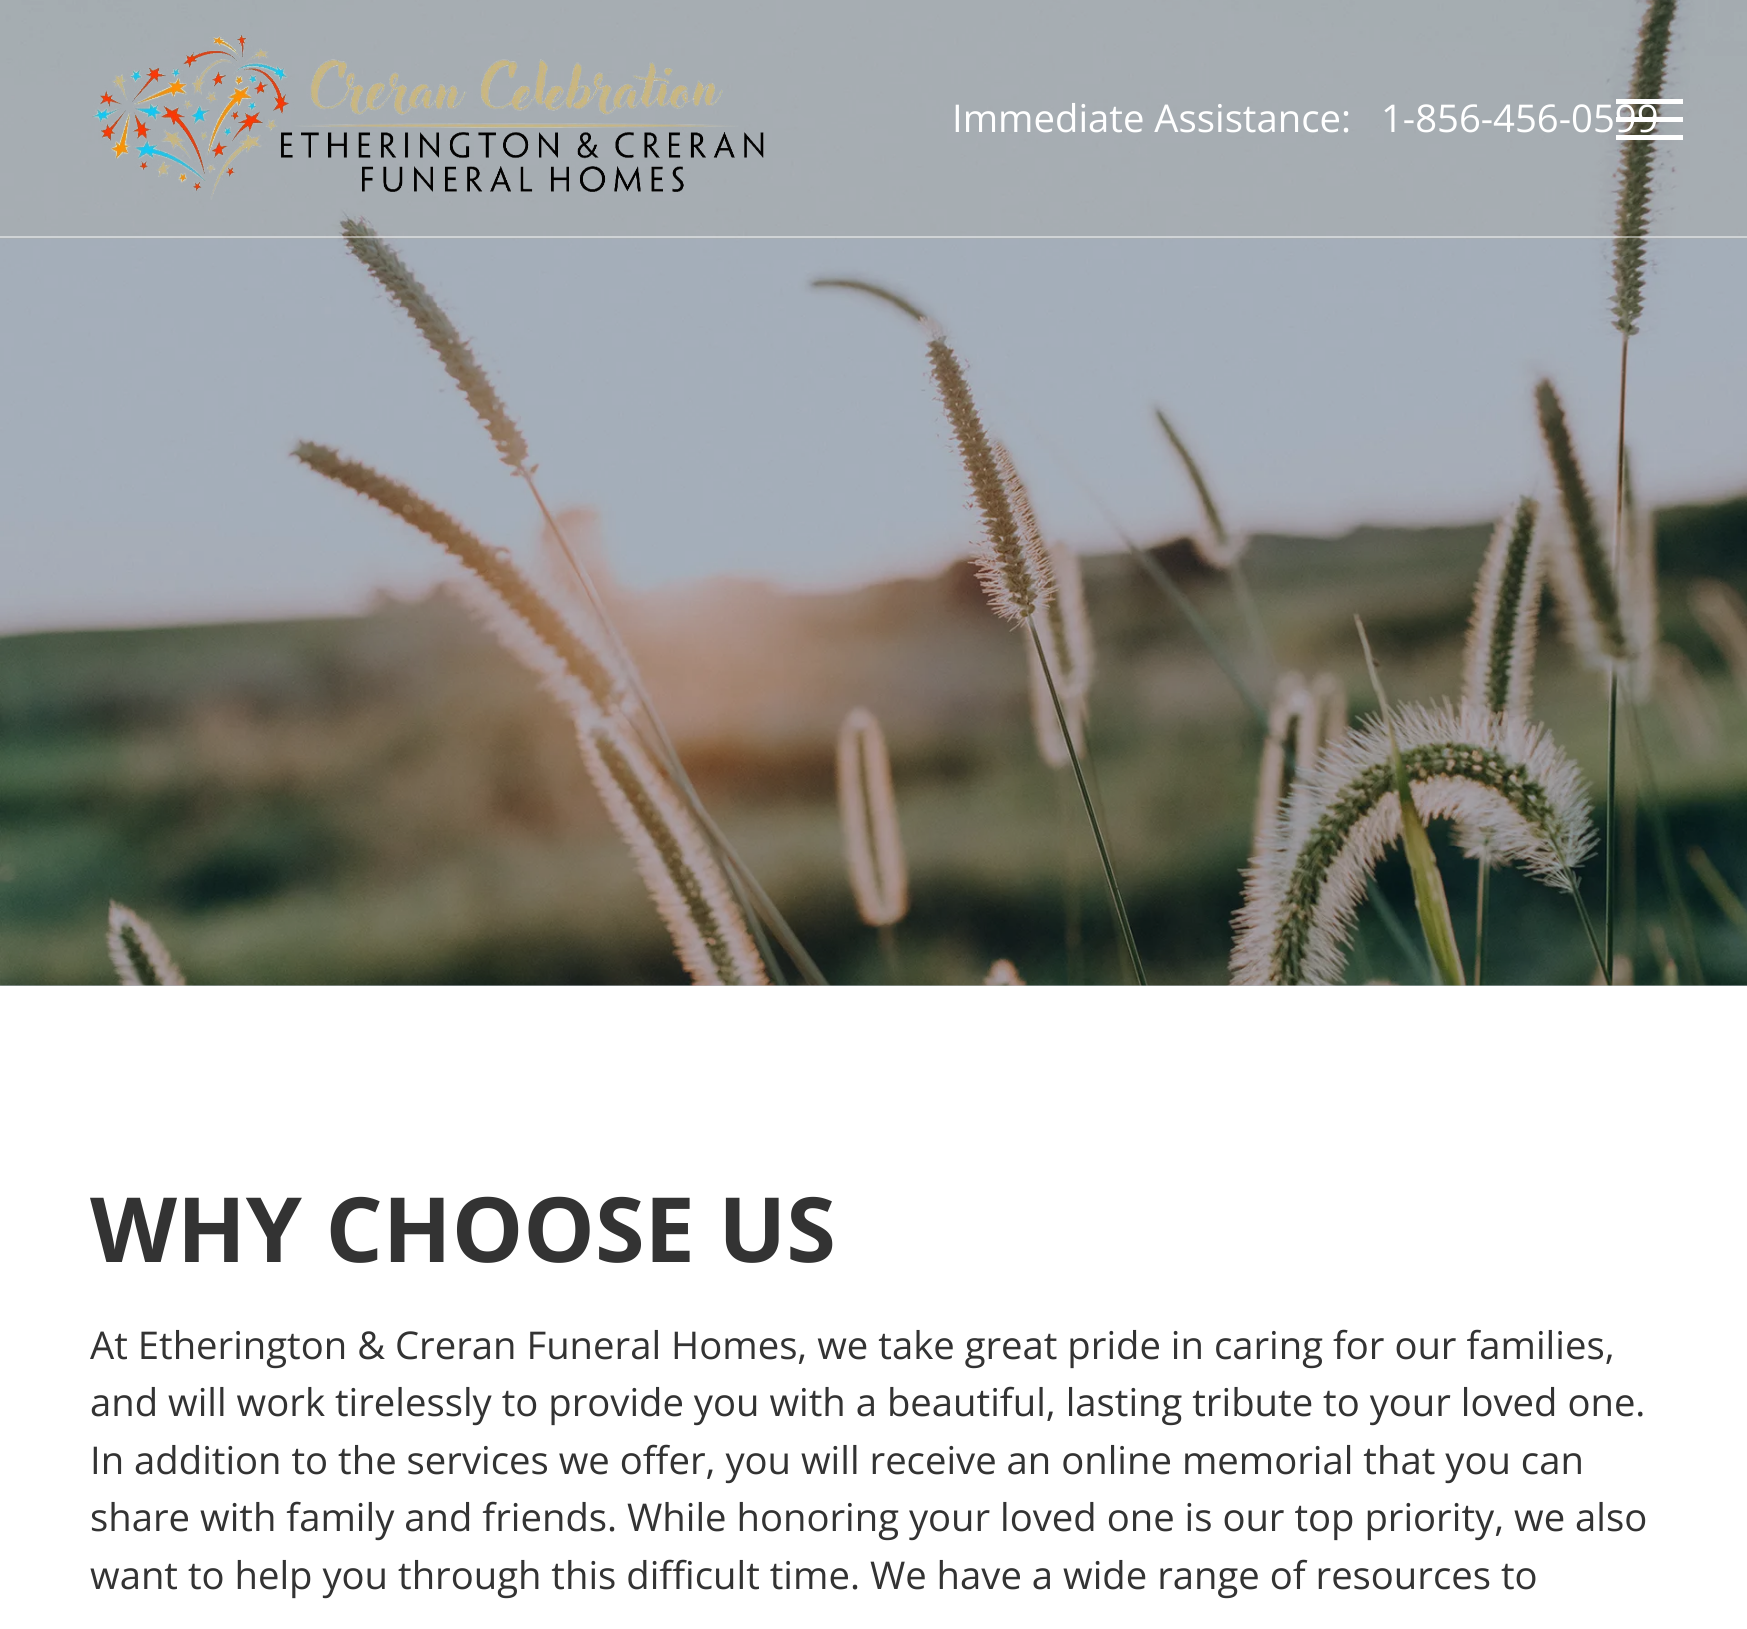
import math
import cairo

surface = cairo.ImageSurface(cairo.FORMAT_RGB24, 1747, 1629)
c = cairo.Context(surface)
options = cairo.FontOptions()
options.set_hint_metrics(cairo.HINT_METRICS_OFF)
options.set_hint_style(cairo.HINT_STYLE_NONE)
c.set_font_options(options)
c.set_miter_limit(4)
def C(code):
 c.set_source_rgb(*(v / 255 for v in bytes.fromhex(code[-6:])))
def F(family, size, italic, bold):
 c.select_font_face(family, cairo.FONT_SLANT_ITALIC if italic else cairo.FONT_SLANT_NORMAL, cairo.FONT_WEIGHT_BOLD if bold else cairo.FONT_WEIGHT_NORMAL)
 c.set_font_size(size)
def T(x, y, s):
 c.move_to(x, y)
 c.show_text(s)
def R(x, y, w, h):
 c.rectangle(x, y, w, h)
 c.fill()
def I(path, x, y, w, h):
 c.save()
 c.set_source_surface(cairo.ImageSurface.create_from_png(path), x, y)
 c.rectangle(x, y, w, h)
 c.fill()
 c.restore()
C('ffffff')
c.paint()
C('b5bdc5')
R(0,985,1747,1)
I('2.png',0,0,1747,986)
c.set_source_rgba(0.812,0.569,0.224,0.05)
R(0,0,1747,239)
C('ffffff')
R(1616,99,67,5)
R(1616,117,67,5)
R(1616,135,67,5)
c.set_source_rgba(1,1,1,0.46)
R(0,236,1747,2)
I('1.png',92,35,672,165)
F('Open Sans',38.25,0,0)
C('ffffff')
T(952,132,'Immediate Assistance:')
T(1381,132,'1-856-456-0599')
F('Open Sans',90,0,1)
C('333333')
T(90,1262,'WHY CHOOSE US')
F('Open Sans',38.25,0,0)
T(90,1359,'At Etherington & Creran Funeral Homes, we take great pride in caring for our families,')
T(90,1416,'and will work tirelessly to provide you with a beautiful, lasting tribute to your loved one.')
T(90,1474,'In addition to the services we offer, you will receive an online memorial that you can')
T(90,1531,'share with family and friends. While honoring your loved one is our top priority, we also')
T(90,1589,'want to help you through this difficult time. We have a wide range of resources to')
surface.write_to_png('o.png')
